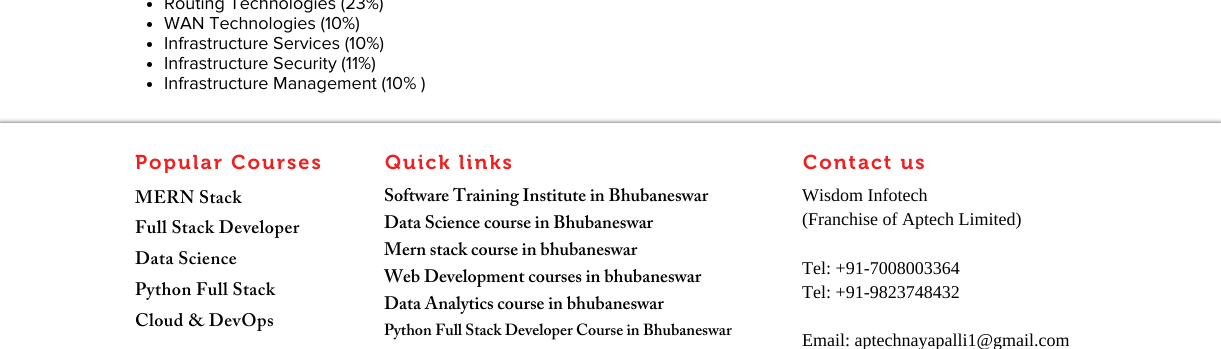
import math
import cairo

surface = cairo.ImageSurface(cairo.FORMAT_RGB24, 1221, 349)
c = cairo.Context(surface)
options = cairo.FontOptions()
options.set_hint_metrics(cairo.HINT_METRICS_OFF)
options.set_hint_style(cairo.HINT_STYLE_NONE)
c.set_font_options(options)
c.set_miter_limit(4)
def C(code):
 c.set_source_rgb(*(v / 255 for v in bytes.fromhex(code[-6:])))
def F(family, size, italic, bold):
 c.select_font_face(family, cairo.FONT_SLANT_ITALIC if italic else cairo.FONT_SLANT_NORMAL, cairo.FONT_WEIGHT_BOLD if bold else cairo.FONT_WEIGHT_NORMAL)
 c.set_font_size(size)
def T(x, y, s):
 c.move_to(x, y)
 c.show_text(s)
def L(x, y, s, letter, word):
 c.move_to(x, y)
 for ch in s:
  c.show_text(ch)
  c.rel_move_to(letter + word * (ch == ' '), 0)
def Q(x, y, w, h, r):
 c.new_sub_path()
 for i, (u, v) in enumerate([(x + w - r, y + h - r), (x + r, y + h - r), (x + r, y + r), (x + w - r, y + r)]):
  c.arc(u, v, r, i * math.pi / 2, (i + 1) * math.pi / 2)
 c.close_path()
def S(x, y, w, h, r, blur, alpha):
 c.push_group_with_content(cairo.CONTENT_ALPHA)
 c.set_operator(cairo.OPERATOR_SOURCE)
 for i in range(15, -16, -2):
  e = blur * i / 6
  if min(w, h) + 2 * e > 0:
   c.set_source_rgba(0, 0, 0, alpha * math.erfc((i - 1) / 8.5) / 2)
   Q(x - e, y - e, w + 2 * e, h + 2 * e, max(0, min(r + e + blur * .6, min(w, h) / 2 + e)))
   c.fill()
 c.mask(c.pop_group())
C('ffffff')
c.paint()
C('000000')
c.arc(149.5,4.5,2.5,0,2 * math.pi)
c.fill()
F('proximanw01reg',18,0,0)
T(164,9,'Routing Technologies (23%)')
c.new_path()
c.arc(149.5,24.5,2.5,0,2 * math.pi)
c.fill()
T(164,29,'WAN Technologies (10%)')
c.new_path()
c.arc(149.5,44.5,2.5,0,2 * math.pi)
c.fill()
T(164,49,'Infrastructure Services (10%)')
c.new_path()
c.arc(149.5,64.5,2.5,0,2 * math.pi)
c.fill()
T(164,69,'Infrastructure Security (11%)')
c.new_path()
c.arc(149.5,84.5,2.5,0,2 * math.pi)
c.fill()
T(164,89,'Infrastructure Management (10% )')
c.save()
c.rectangle(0,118,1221,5)
c.clip()
C('000000')
S(0,123,1221,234,0,2.5,.7)
c.restore()
F('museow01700 SemiBold',20,0,0)
C('f21d1d')
L(135,169,'Popular Courses',2,0)
L(385,169,'Quick links',2,0)
L(803,169,'Contact us',2,0)
F('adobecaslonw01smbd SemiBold',18,0,0)
C('000000')
L(135,203,'MERN Stack',.5,0)
L(135,233,'Full Stack Developer',.5,0)
L(135,264,'Data Science',.5,0)
L(135,295,'Python Full Stack',.5,0)
L(135,326,'Cloud & DevOps',.5,0)
T(384,201,'Software Training Institute in Bhubaneswar')
T(384,228,'Data Science course in Bhubaneswar')
T(384,255,'Mern stack course in bhubaneswar')
T(384,282,'Web Development courses in bhubaneswar')
T(384,309,'Data Analytics course in bhubaneswar')
F('adobecaslonw01smbd SemiBold',16,0,0)
T(384,335,'Python Full Stack Developer Course in Bhubaneswar')
F('Liberation Serif',18,0,0)
T(802,201,'Wisdom Infotech')
T(802,225,'(Franchise of Aptech Limited)')
T(802,274,'Tel: +91-7008003364')
T(802,298,'Tel: +91-9823748432')
T(802,346,'Email: aptechnayapalli1@gmail.com')
surface.write_to_png('o.png')
